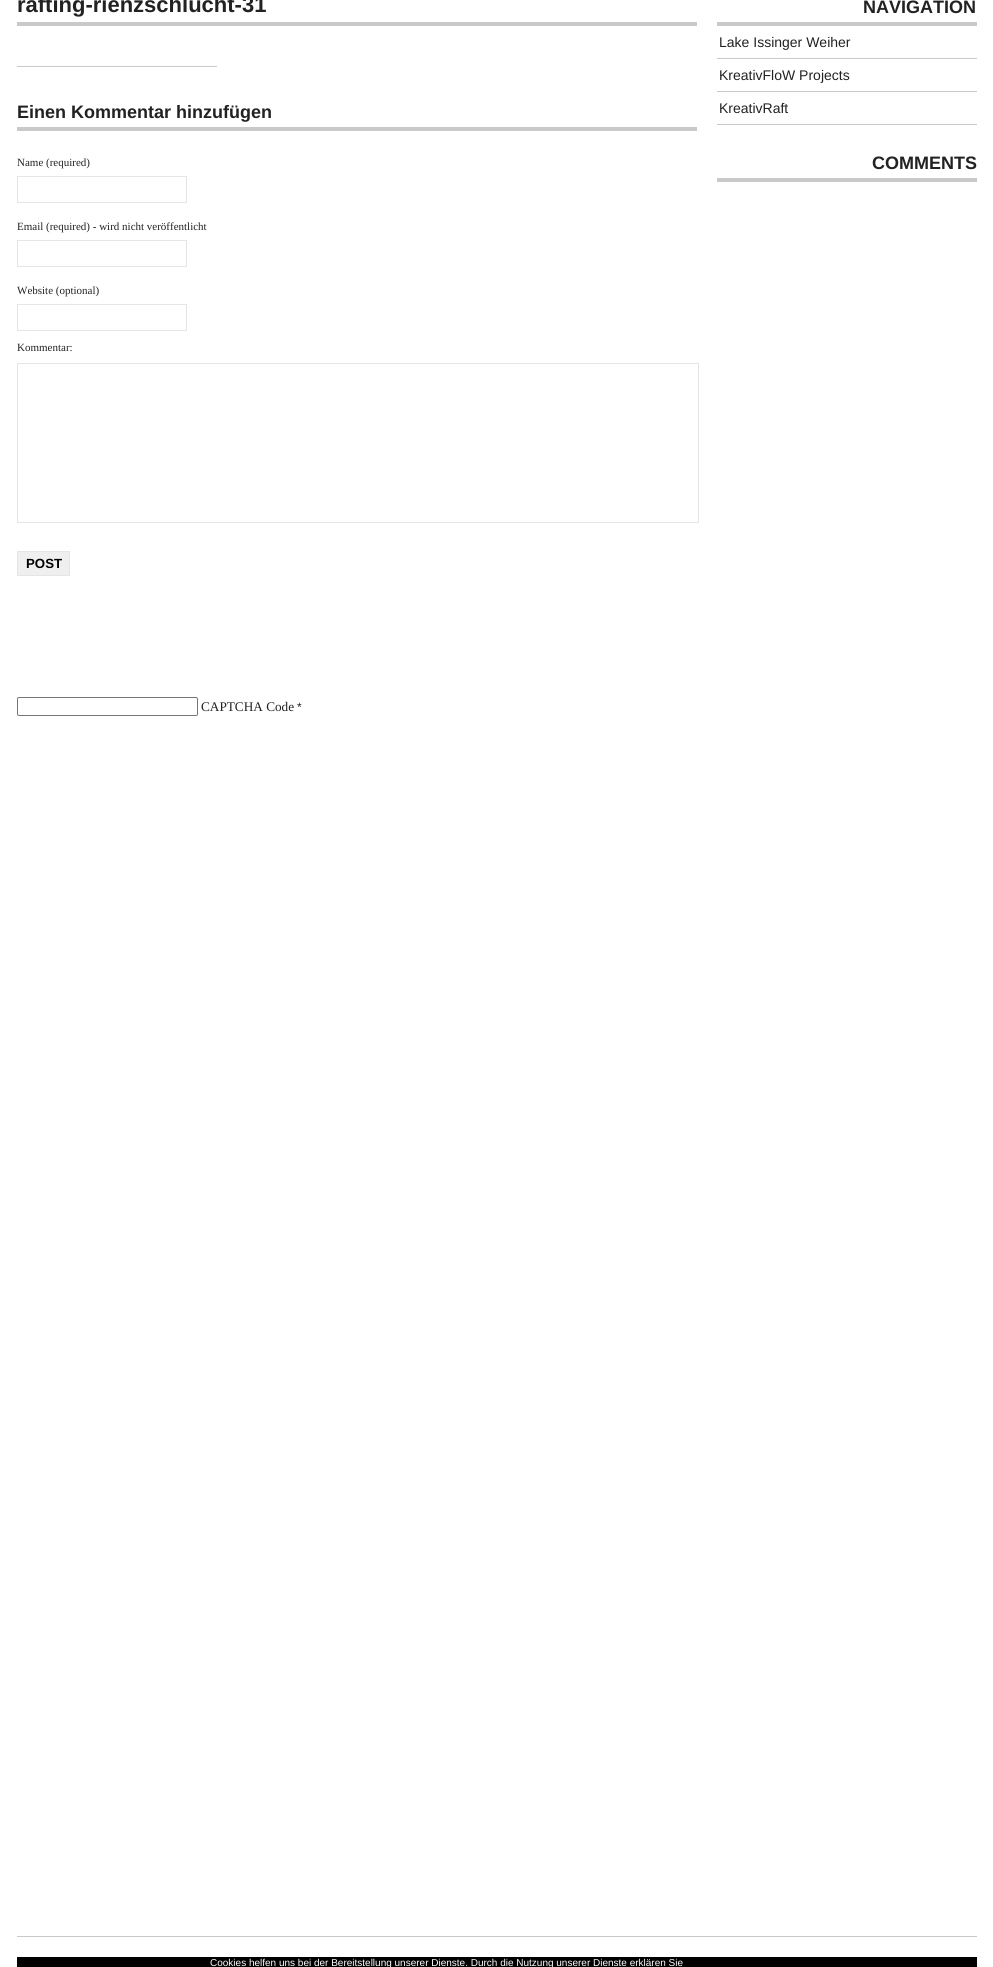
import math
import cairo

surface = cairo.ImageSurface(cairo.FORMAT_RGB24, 993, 1967)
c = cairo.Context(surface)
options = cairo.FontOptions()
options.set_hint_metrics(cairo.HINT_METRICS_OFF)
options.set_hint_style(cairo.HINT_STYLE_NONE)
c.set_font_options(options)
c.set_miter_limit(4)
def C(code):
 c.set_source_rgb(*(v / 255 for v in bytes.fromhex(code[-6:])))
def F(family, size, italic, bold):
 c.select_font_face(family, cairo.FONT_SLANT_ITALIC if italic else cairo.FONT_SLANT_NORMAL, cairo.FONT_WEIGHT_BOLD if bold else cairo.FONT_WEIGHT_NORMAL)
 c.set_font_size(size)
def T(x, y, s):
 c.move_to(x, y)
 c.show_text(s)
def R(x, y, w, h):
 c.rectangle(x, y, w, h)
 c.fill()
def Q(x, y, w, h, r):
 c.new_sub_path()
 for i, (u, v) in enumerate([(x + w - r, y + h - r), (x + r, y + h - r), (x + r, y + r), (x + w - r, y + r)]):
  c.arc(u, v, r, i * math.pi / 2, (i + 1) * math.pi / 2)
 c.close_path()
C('ffffff')
c.paint()
C('c9c9c9')
R(17,22,680,4)
F('Liberation Sans',22,0,1)
C('222222')
T(17,12,'rafting-rienzschlucht-31')
C('c9c9c9')
R(17,66,200,1)
R(17,127,680,4)
F('Liberation Sans',18,0,1)
C('222222')
T(17,118,'Einen Kommentar hinzufügen')
F('Liberation Serif',11,0,0)
T(17,166,'Name (required)')
c.rectangle(17.5,176.5,169,26)
C('e5e5e5')
c.set_line_width(1)
c.stroke()
C('222222')
T(17,230,'Email (required) - wird nicht veröffentlicht')
c.rectangle(17.5,240.5,169,26)
C('e5e5e5')
c.stroke()
C('222222')
T(17,294,'Website (optional)')
c.rectangle(17.5,304.5,169,26)
C('e5e5e5')
c.stroke()
C('222222')
T(17,351,'Kommentar:')
c.rectangle(17.5,363.5,681,159)
C('e5e5e5')
c.stroke()
C('efefef')
c.rectangle(17.5,551.5,52,24)
c.fill_preserve()
C('e5e5e5')
c.stroke()
F('Liberation Sans',13.25,0,1)
C('000000')
T(26,568,'POST')
Q(17.5,697.5,180,18,1.5)
C('767676')
c.stroke()
F('Liberation Serif',13.25,0,0)
C('222222')
T(201,711,'CAPTCHA Code')
F('Liberation Sans',12,0,0)
T(297,711,'*')
C('c9c9c9')
R(717,22,260,4)
F('Liberation Sans',18,0,1)
C('222222')
T(863,13,'NAVIGATION')
C('c9c9c9')
R(717,58,260,1)
F('Liberation Sans',14,0,0)
C('222222')
T(719,47,'Lake Issinger Weiher')
C('c9c9c9')
R(717,91,260,1)
C('222222')
T(719,80,'KreativFloW Projects')
C('c9c9c9')
R(717,124,260,1)
C('222222')
T(719,113,'KreativRaft')
C('c9c9c9')
R(717,178,260,4)
F('Liberation Sans',18,0,1)
C('222222')
T(872,169,'COMMENTS')
C('c9c9c9')
R(17,1936,960,1)
C('000000')
R(17,1957,960,10)
F('Liberation Sans',10,0,0)
C('ffffff')
T(210,1966,'Cookies helfen uns bei der Bereitstellung unserer Dienste. Durch die Nutzung unserer Dienste erklären Sie')
surface.write_to_png('o.png')
